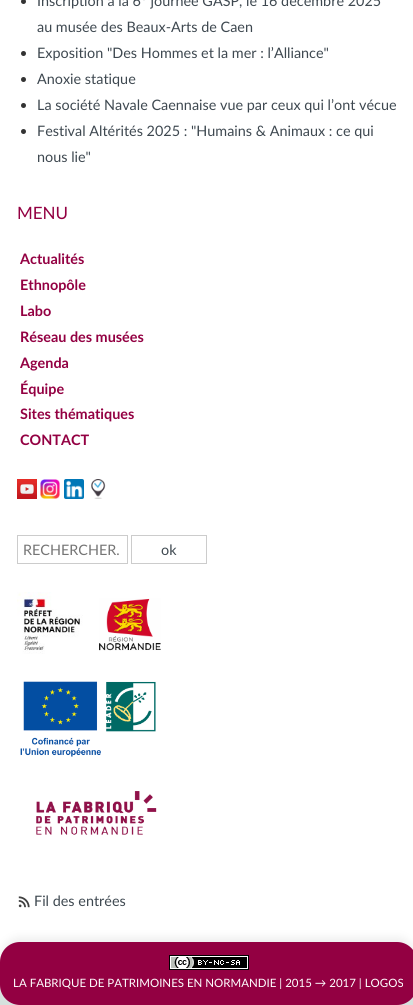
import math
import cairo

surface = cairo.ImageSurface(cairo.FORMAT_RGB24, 413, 1005)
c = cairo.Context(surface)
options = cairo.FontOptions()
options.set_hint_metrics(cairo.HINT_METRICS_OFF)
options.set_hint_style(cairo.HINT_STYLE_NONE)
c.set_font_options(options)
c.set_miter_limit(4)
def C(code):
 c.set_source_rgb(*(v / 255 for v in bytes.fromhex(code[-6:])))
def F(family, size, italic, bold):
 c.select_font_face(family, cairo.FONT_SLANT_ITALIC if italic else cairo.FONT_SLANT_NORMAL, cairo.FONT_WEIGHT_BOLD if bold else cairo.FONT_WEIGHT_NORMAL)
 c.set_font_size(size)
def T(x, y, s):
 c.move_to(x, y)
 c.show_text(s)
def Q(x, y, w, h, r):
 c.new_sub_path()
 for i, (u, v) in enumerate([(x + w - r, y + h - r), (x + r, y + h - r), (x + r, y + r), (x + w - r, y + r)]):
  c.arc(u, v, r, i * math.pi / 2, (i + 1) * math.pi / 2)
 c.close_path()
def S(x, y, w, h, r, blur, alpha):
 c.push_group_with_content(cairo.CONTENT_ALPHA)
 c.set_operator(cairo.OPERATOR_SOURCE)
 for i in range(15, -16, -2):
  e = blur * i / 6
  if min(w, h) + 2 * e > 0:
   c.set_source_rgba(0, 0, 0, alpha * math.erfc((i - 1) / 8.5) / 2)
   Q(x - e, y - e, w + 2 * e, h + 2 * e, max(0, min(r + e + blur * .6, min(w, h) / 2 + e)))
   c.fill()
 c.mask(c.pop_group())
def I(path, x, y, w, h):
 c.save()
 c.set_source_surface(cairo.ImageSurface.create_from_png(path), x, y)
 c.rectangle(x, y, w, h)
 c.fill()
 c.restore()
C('d5e1dd')
c.paint()
C('ffffff')
Q(0,-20,413,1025,20)
c.fill()
C('333333')
c.arc(23.5,1.5,2.5,0,2 * math.pi)
c.fill()
F('Lato',14.4,0,0)
C('3e4850')
T(37,6,'Inscription à la 6° journée GASP, le 16 décembre 2025')
T(37,32,'au musée des Beaux-Arts de Caen')
C('333333')
c.new_path()
c.arc(23.5,53.5,2.5,0,2 * math.pi)
c.fill()
C('3e4850')
T(37,58,'Exposition "Des Hommes et la mer : l’Alliance"')
C('333333')
c.new_path()
c.arc(23.5,79.5,2.5,0,2 * math.pi)
c.fill()
C('3e4850')
T(37,84,'Anoxie statique')
C('333333')
c.new_path()
c.arc(23.5,105.5,2.5,0,2 * math.pi)
c.fill()
C('3e4850')
T(37,110,'La société Navale Caennaise vue par ceux qui l’ont vécue')
C('333333')
c.new_path()
c.arc(23.5,131.5,2.5,0,2 * math.pi)
c.fill()
C('3e4850')
T(37,136,'Festival Altérités 2025 : "Humains & Animaux : ce qui')
T(37,162,'nous lie"')
F('Lato',17,0,0)
C('930042')
T(17,219,'MENU')
F('Lato',14.4,0,1)
T(20,264,'Actualités')
T(20,290,'Ethnopôle')
T(20,316,'Labo')
T(20,342,'Réseau des musées')
T(20,368,'Agenda')
T(20,394,'Équipe')
T(20,419,'Sites thématiques')
T(20,445,'CONTACT')
I('1.png',17,479,20,20)
I('2.png',40,479,20,20)
I('3.png',64,479,20,20)
I('4.png',91,479,15,20)
c.rectangle(17.5,535.5,110,28)
C('cccccc')
c.set_line_width(1)
c.stroke()
F('Lato',14.4,0,0)
C('757575')
T(23,555,'RECHERCHER.')
c.rectangle(131.5,535.5,75,28)
C('cccccc')
c.stroke()
C('3e4850')
T(161,555,'ok')
I('5.png',17,592,66,62)
I('6.png',99,598,62,53)
I('7.png',20,681,136,76)
I('8.png',36,791,121,44)
I('9.png',18,896,12,12)
T(34,906,'Fil des entrées')
C('efefef')
S(0,937,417,63,20,4,1)
C('930042')
Q(0,942,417,63,20)
c.fill()
I('10.png',169,955,80,15)
F('Lato',11.5,0,0)
C('ffffff')
T(13,987,'LA FABRIQUE DE PATRIMOINES EN NORMANDIE | 2015 → 2017 | LOGOS')
surface.write_to_png('o.png')
